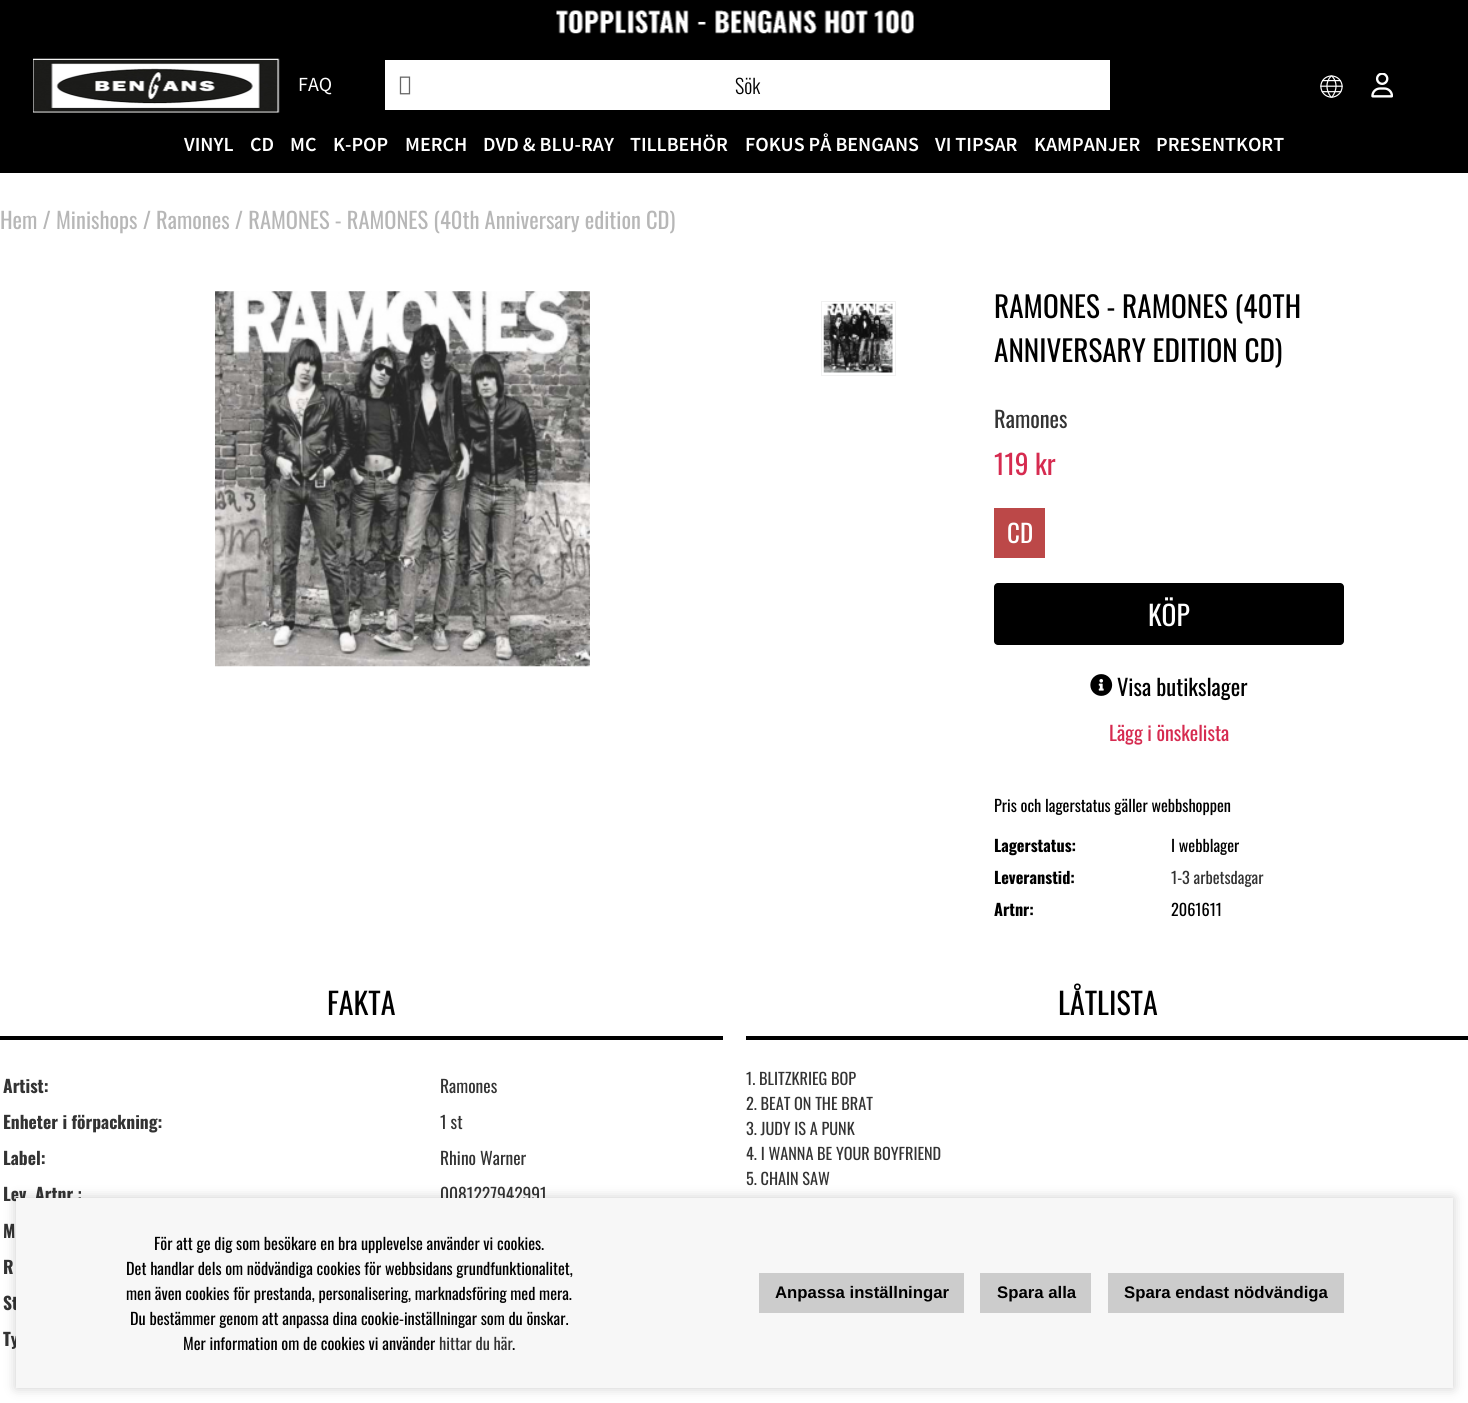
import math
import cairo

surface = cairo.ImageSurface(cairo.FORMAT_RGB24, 1468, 1403)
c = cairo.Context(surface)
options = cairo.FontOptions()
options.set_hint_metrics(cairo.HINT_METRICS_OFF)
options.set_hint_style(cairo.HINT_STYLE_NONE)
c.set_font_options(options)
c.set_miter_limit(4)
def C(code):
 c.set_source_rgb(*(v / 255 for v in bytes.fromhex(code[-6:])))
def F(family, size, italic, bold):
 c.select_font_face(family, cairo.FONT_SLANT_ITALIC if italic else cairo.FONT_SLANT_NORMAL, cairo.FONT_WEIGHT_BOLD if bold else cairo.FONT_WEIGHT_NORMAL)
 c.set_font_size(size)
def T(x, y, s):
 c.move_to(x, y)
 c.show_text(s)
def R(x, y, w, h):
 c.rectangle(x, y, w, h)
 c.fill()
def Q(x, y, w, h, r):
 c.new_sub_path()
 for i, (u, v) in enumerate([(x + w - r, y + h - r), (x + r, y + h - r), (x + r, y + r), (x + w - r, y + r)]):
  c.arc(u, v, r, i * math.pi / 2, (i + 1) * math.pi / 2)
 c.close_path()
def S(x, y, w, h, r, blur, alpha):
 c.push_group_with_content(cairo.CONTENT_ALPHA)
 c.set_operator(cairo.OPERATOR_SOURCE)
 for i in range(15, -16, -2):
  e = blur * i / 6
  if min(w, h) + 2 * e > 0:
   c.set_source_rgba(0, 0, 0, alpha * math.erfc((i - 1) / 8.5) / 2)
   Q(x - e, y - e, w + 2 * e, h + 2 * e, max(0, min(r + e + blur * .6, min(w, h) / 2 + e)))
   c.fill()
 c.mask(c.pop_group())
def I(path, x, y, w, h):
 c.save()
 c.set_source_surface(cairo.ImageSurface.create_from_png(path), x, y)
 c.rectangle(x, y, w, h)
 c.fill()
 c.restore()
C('ffffff')
c.paint()
C('000000')
R(0,0,1468,173)
I('1.png',556,10,358,24)
I('2.png',33,58,247,55)
F('Source Sans Pro',20,0,0)
C('ffffff')
T(298,91,'FAQ')
R(385,60,725,50)
I('3.png',399,76,12,19)
F('Oswald Light',20,0,0)
C('000000')
T(735,94,'Sök')
I('4.png',1320,75,23,23)
I('5.png',1371,73,22,25)
F('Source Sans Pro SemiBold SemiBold',20,0,0)
C('ffffff')
T(184,151,'VINYL')
T(250,151,'CD')
T(290,151,'MC')
T(333,151,'K-POP')
T(405,151,'MERCH')
T(483,151,'DVD & BLU-RAY')
T(630,151,'TILLBEHÖR')
T(745,151,'FOKUS PÅ BENGANS')
T(935,151,'VI TIPSAR')
T(1034,151,'KAMPANJER')
T(1156,151,'PRESENTKORT')
F('Oswald',22.5,0,0)
C('b7b7b7')
T(0,229,'Hem / Minishops / Ramones / RAMONES - RAMONES (40th Anniversary edition CD)')
I('6.png',215,291,375,376)
c.rectangle(821.5,301.5,74,74)
C('f1f1f1')
c.set_line_width(1)
c.stroke()
I('7.png',823,303,70,70)
F('Oswald',29.25,0,0)
C('000000')
T(994,318,'RAMONES - RAMONES (40TH')
T(994,362,'ANNIVERSARY EDITION CD)')
F('Oswald',22.5,0,0)
C('333333')
T(994,428,'Ramones')
F('Oswald',27.5,0,0)
C('d62b50')
T(994,475,'119 kr')
C('bc4848')
R(994,508,51,50)
F('Oswald',25,0,0)
C('ffffff')
T(1007,543,'CD')
C('000000')
Q(994,583,350,62,4)
c.fill()
F('Oswald',27.5,0,0)
C('ffffff')
T(1148,626,'KÖP')
I('8.png',1090,674,23,22)
F('Oswald',22.5,0,0)
C('000000')
T(1117,696,'Visa butikslager')
F('Oswald',20,0,0)
C('d62b50')
T(1109,741,'Lägg i önskelista')
F('Oswald',16.25,0,0)
C('000000')
T(994,812,'Pris och lagerstatus gäller webbshoppen')
F('Oswald',16.25,0,1)
T(994,852,'Lagerstatus:')
F('Oswald',16.25,0,0)
T(1171,852,'I webblager')
F('Oswald',16.25,0,1)
T(994,884,'Leveranstid:')
F('Oswald',16.25,0,0)
C('333333')
T(1171,884,'1-3 arbetsdagar')
F('Oswald',16.25,0,1)
C('000000')
T(994,916,'Artnr:')
F('Oswald',16.25,0,0)
T(1171,916,'2061611')
R(0,1036,723,4)
F('Oswald',30,0,0)
T(327,1015,'FAKTA')
F('Oswald',17.5,0,1)
C('333333')
T(3,1093,'Artist:')
F('Oswald',17.5,0,0)
T(440,1093,'Ramones')
F('Oswald',17.5,0,1)
T(3,1129,'Enheter i förpackning:')
F('Oswald',17.5,0,0)
T(440,1129,'1 st')
F('Oswald',17.5,0,1)
T(3,1165,'Label:')
F('Oswald',17.5,0,0)
T(440,1165,'Rhino Warner')
F('Oswald',17.5,0,1)
T(3,1201,'Lev. Artnr.:')
F('Oswald',17.5,0,0)
T(440,1201,'0081227942991')
F('Oswald',17.5,0,1)
T(3,1238,'M')
T(3,1274,'R')
T(3,1310,'St')
T(3,1346,'Ty')
C('000000')
R(746,1036,722,4)
F('Oswald',30,0,0)
T(1058,1015,'LÅTLISTA')
F('Oswald',16.25,0,0)
C('333333')
T(746,1085,'1. BLITZKRIEG BOP')
T(746,1110,'2. BEAT ON THE BRAT')
T(746,1135,'3. JUDY IS A PUNK')
T(746,1160,'4. I WANNA BE YOUR BOYFRIEND')
T(746,1185,'5. CHAIN SAW')
C('000000')
S(16,1198,1437,190,0,6,.2)
C('f7f7f7')
R(16,1198,1437,190)
C('000000')
T(154,1250,'För att ge dig som besökare en bra upplevelse använder vi cookies.')
T(126,1275,'Det handlar dels om nödvändiga cookies för webbsidans grundfunktionalitet,')
T(126,1300,'men även cookies för prestanda, personalisering, marknadsföring med mera.')
T(130,1325,'Du bestämmer genom att anpassa dina cookie-inställningar som du önskar.')
T(183,1350,'Mer information om de cookies vi använder')
C('333333')
T(439,1350,'hittar du här')
C('000000')
T(512,1350,'.')
C('cccccc')
R(759,1273,205,40)
F('Liberation Sans',16.75,0,1)
C('000000')
T(775,1298,'Anpassa inställningar')
C('cccccc')
R(980,1273,111,40)
C('000000')
T(997,1298,'Spara alla')
C('cccccc')
R(1108,1273,236,40)
C('000000')
T(1124,1298,'Spara endast nödvändiga')
surface.write_to_png('o.png')
